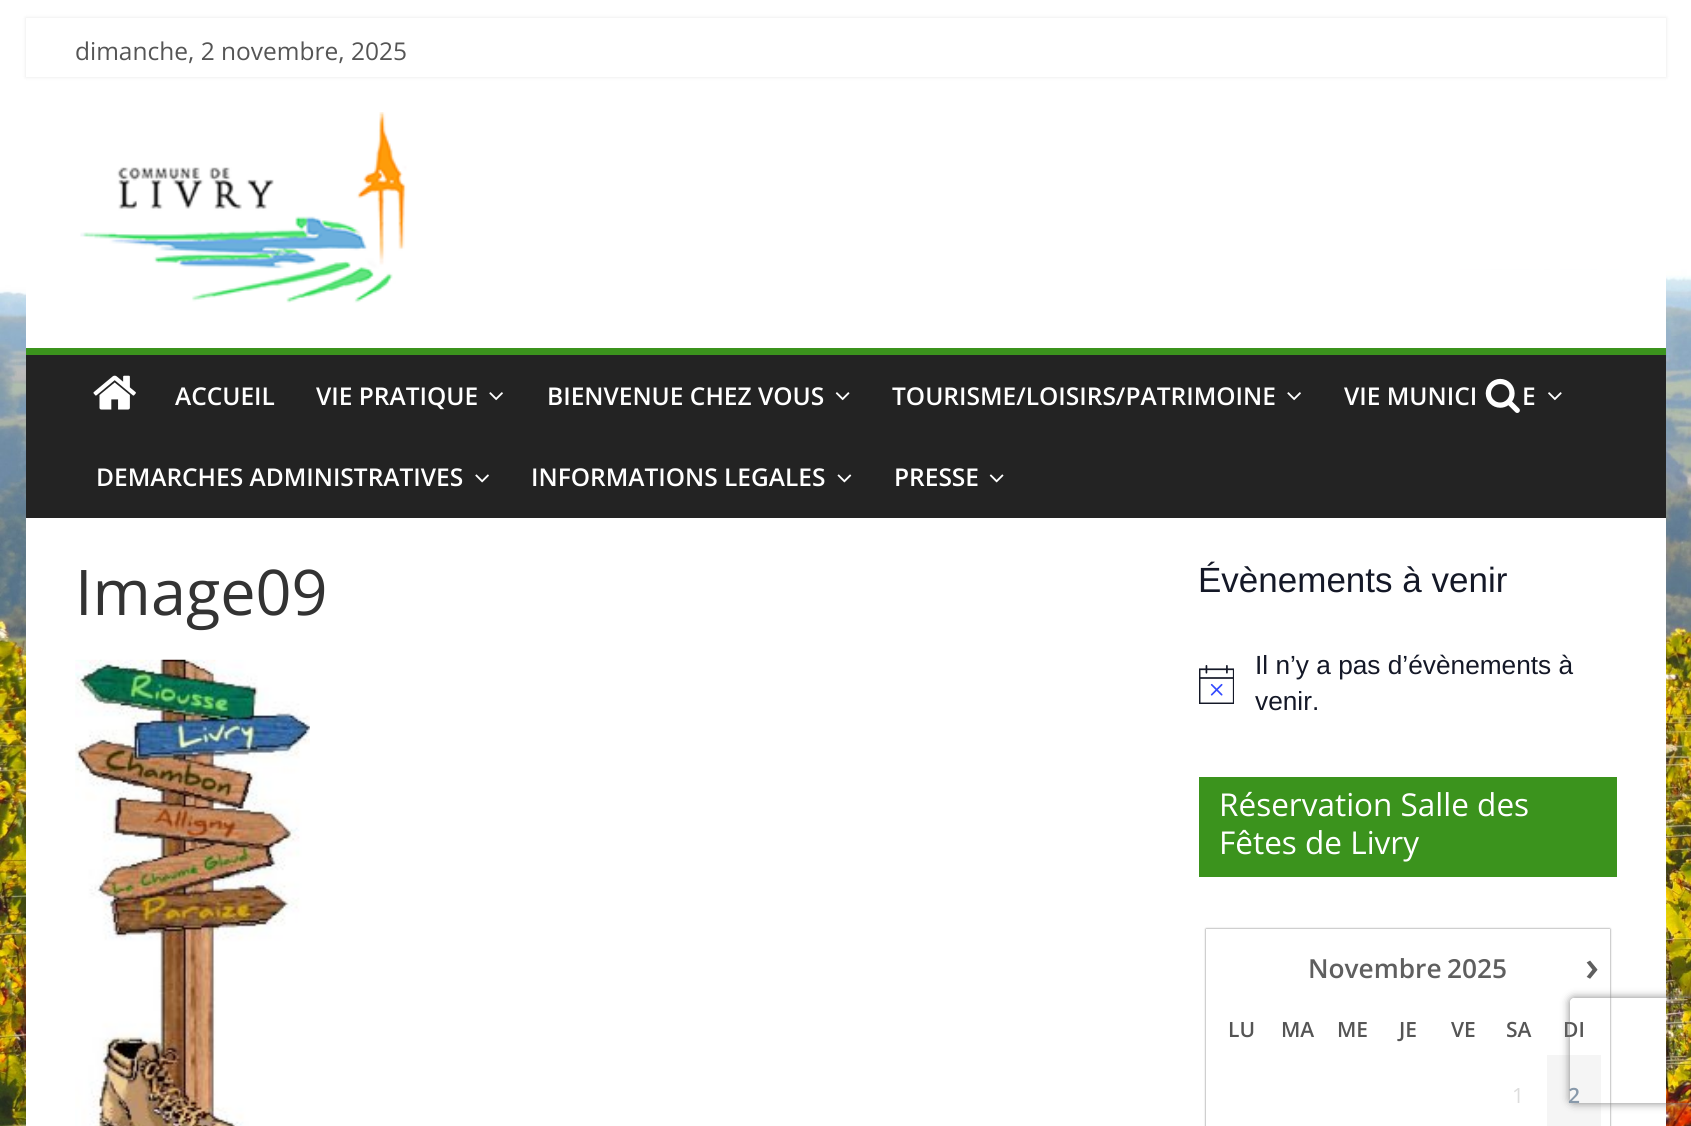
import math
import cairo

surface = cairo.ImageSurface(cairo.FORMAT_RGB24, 1691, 1126)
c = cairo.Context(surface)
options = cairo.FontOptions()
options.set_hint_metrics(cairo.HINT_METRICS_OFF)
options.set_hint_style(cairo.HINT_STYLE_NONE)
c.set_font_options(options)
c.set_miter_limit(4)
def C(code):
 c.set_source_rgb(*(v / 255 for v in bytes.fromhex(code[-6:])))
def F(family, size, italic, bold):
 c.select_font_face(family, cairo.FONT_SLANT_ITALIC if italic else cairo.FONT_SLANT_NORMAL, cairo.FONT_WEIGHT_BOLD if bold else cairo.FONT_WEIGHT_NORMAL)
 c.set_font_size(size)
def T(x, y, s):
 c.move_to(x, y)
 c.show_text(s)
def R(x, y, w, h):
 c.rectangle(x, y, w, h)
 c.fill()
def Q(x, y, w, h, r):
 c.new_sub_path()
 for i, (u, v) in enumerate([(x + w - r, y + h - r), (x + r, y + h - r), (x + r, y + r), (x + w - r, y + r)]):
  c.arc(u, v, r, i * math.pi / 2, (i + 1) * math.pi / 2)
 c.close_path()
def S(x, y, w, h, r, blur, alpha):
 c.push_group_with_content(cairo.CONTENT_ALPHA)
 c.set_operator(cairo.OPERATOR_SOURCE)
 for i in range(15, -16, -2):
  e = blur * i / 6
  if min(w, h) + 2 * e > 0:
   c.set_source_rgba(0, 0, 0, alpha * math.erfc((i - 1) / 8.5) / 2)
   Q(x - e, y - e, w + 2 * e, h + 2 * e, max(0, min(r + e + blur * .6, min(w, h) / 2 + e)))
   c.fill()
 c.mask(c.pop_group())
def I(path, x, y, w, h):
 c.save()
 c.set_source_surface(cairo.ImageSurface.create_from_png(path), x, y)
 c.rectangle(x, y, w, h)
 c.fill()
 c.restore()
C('ffffff')
c.paint()
I('1.png',0,0,1691,1126)
C('ffffff')
R(26,270,1640,78)
C('000000')
S(26,18,1640,59,0,2,.1)
C('ffffff')
R(26,18,1640,59)
F('Open Sans',24.5,0,0)
C('555555')
T(75,60,'dimanche, 2 novembre, 2025')
I('2.png',80,112,327,191)
C('232323')
R(26,355,1640,163)
C('3b931d')
R(26,348,1640,7)
I('3.png',93,375,43,35)
I('4.png',1485,378,35,35)
F('Open Sans SemiBold',24.5,0,0)
C('ffffff')
T(175,405,'ACCUEIL')
T(316,405,'VIE PRATIQUE')
I('5.png',489,392,14,9)
T(547,405,'BIENVENUE CHEZ VOUS')
I('6.png',835,392,15,9)
T(892,405,'TOURISME/LOISIRS/PATRIMOINE')
I('5.png',1287,392,14,9)
T(1344,405,'VIE MUNICI')
T(1522,405,'E')
I('7.png',1548,392,14,9)
T(96,486,'DEMARCHES ADMINISTRATIVES')
I('8.png',475,474,14,9)
T(531,486,'INFORMATIONS LEGALES')
I('9.png',837,474,15,9)
T(894,486,'PRESSE')
I('10.png',989,474,15,9)
R(26,518,1640,608)
F('Open Sans',63,0,0)
C('333333')
T(75,615,'Image09')
I('11.png',75,659,235,467)
F('Liberation Sans',35,0,0)
C('141827')
T(1198,592,'Évènements à venir')
I('12.png',1199,665,35,39)
F('Liberation Sans',26.25,0,0)
T(1255,674,'Il n’y a pas d’évènements à')
T(1255,710,'venir.')
C('3b931d')
R(1199,777,418,100)
F('Open Sans',31.5,0,0)
C('ffffff')
T(1219,816,'Réservation Salle des')
T(1219,854,'Fêtes de Livry')
C('707070')
S(1206,929,404,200,0,1,1)
C('ffffff')
R(1206,929,404,197)
F('Open Sans SemiBold',26.25,0,0)
C('5f5f5f')
T(1308,978,'Novembre')
T(1447,978,'2025')
F('Open Sans SemiBold',21,0,0)
C('555555')
T(1228,1037,'LU')
T(1281,1037,'MA')
T(1337,1037,'ME')
T(1399,1037,'JE')
T(1451,1037,'VE')
T(1506,1037,'SA')
T(1563,1037,'DI')
F('Open Sans',21,0,0)
C('dddddd')
T(1512,1103,'1')
C('f5f5f5')
R(1547,1055,54,71)
c.save()
c.set_fill_rule(cairo.FILL_RULE_EVEN_ODD)
c.new_path()
c.move_to(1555,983)
c.line_to(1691,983)
c.line_to(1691,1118)
c.line_to(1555,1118)
c.close_path()
c.move_to(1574,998)
c.line_to(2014,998)
c.curve_to(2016,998,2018,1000,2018,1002)
c.line_to(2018,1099)
c.curve_to(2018,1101,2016,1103,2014,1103)
c.line_to(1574,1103)
c.curve_to(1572,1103,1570,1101,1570,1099)
c.line_to(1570,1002)
c.curve_to(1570,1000,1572,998,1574,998)
c.close_path()
c.clip()
C('808080')
S(1570,998,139,105,4,4.5,1)
c.restore()
F('Open Sans SemiBold',21,0,0)
C('8899aa')
T(1568,1103,'2')
F('Open Sans SemiBold',42,0,0)
C('5f5f5f')
T(1585,981,'›')
surface.write_to_png('o.png')
